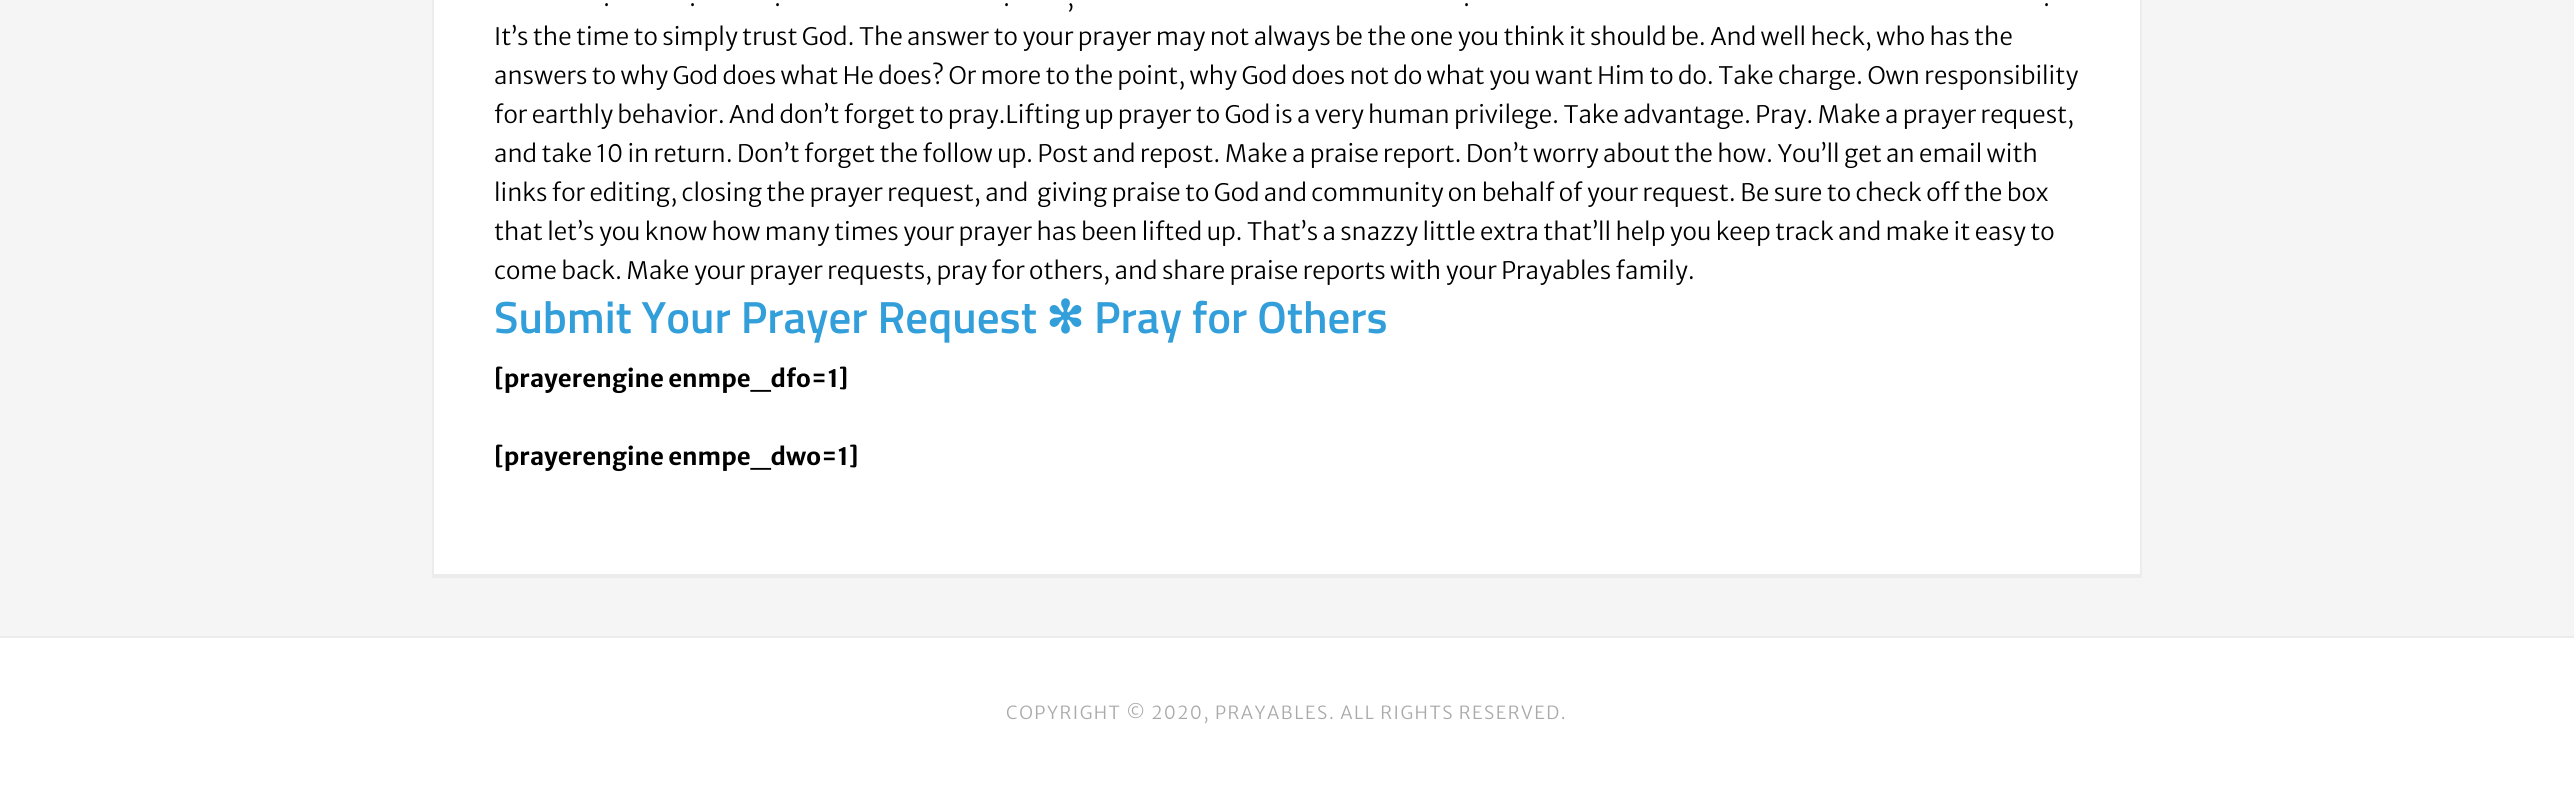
import math
import cairo

surface = cairo.ImageSurface(cairo.FORMAT_RGB24, 2574, 787)
c = cairo.Context(surface)
options = cairo.FontOptions()
options.set_hint_metrics(cairo.HINT_METRICS_OFF)
options.set_hint_style(cairo.HINT_STYLE_NONE)
c.set_font_options(options)
c.set_miter_limit(4)
def C(code):
 c.set_source_rgb(*(v / 255 for v in bytes.fromhex(code[-6:])))
def F(family, size, italic, bold):
 c.select_font_face(family, cairo.FONT_SLANT_ITALIC if italic else cairo.FONT_SLANT_NORMAL, cairo.FONT_WEIGHT_BOLD if bold else cairo.FONT_WEIGHT_NORMAL)
 c.set_font_size(size)
def T(x, y, s):
 c.move_to(x, y)
 c.show_text(s)
def L(x, y, s, letter, word):
 c.move_to(x, y)
 for ch in s:
  c.show_text(ch)
  c.rel_move_to(letter + word * (ch == ' '), 0)
def R(x, y, w, h):
 c.rectangle(x, y, w, h)
 c.fill()
C('ffffff')
c.paint()
C('f5f5f5')
R(0,0,2574,636)
C('ececec')
R(432,576,1710,2)
C('ffffff')
c.rectangle(433,-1,1708,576)
c.fill_preserve()
C('ececec')
c.stroke()
F('Merriweather Sans Light',24,0,0)
C('000000')
T(603,6,'.')
T(689,6,'.')
T(774,6,'.')
T(1003,6,'.')
T(1067,6,',')
T(1463,6,'.')
T(2043,6,'.')
T(494,45,'It’s the time to simply trust God. The answer to your prayer may not always be the one you think it should be. And well heck, who has the')
T(494,84,'answers to why God does what He does? Or more to the point, why God does not do what you want Him to do. Take charge. Own responsibility')
T(494,123,'for earthly behavior. And don’t forget to pray.Lifting up prayer to God is a very human privilege. Take advantage. Pray. Make a prayer request,')
T(494,162,'and take 10 in return. Don’t forget the follow up. Post and repost. Make a praise report. Don’t worry about the how. You’ll get an email with')
T(494,201,'links for editing, closing the prayer request, and  giving praise to God and community on behalf of your request. Be sure to check off the box')
T(494,240,'that let’s you know how many times your prayer has been lifted up. That’s a snazzy little extra that’ll help you keep track and make it easy to')
T(494,279,'come back. Make your prayer requests, pray for others, and share praise reports with your Prayables family.')
F('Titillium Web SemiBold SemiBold',45,0,0)
C('329eda')
T(494,333,'Submit Your Prayer Request')
F('DejaVu Sans',45,0,1)
T(1046,333,'✻')
F('Titillium Web SemiBold SemiBold',45,0,0)
T(1094,333,'Pray for Others')
F('Merriweather Sans',24,0,1)
C('000000')
T(494,387,'[prayerengine enmpe_dfo=1]')
T(494,465,'[prayerengine enmpe_dwo=1]')
C('ececec')
R(0,636,2574,2)
F('Merriweather Sans Light',18,0,0)
C('aaaaaa')
L(1006,719,'COPYRIGHT © 2020, PRAYABLES. ALL RIGHTS RESERVED.',1.5,0)
surface.write_to_png('o.png')
